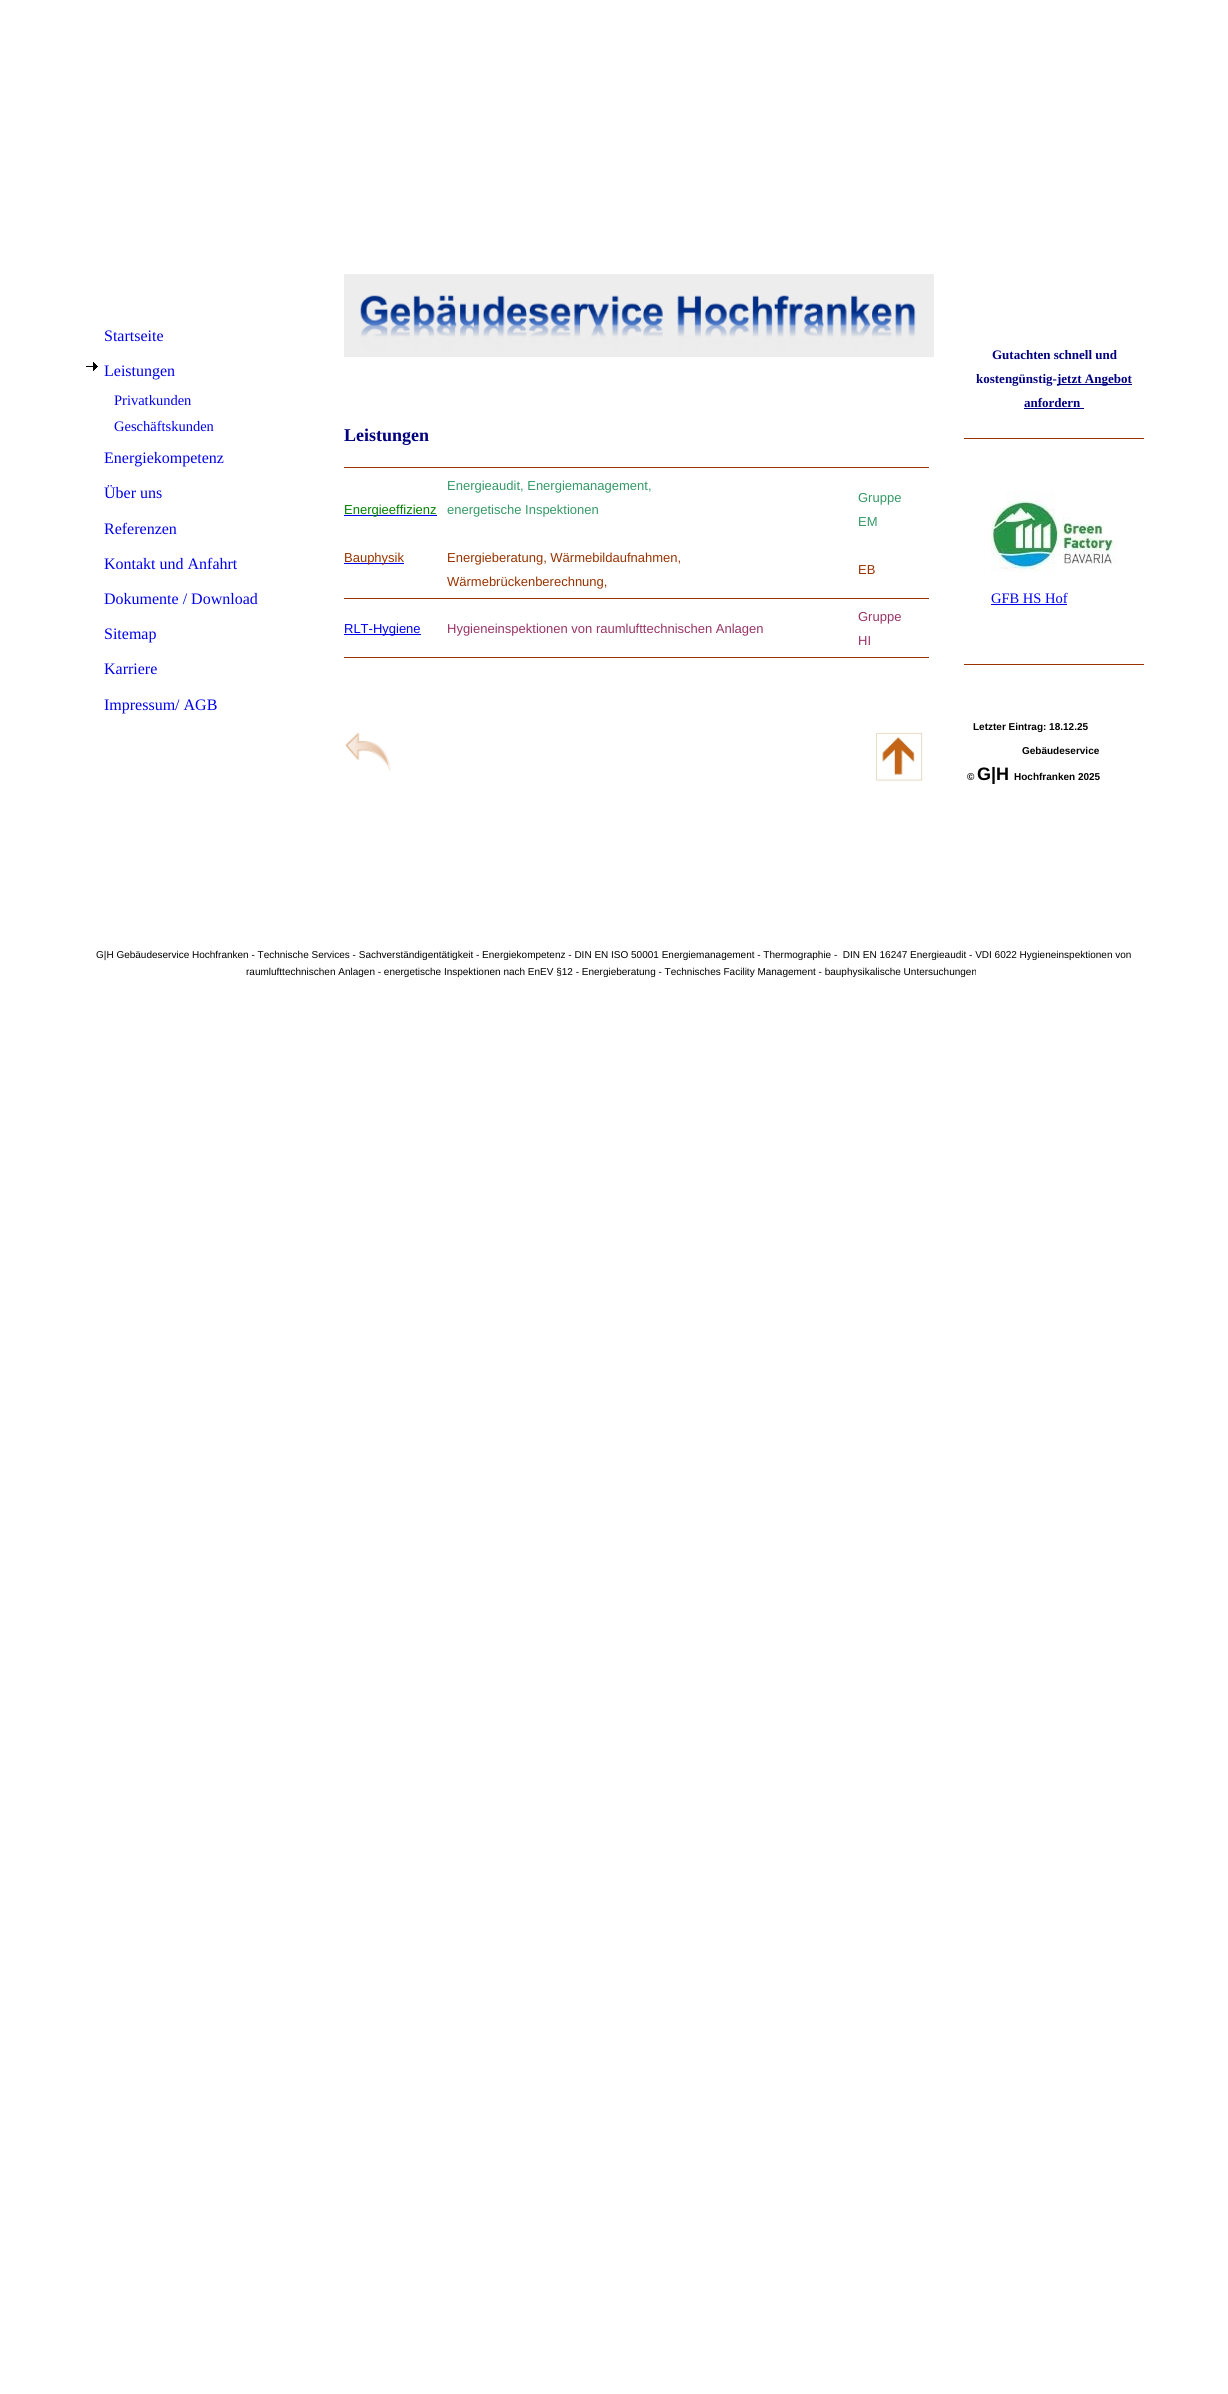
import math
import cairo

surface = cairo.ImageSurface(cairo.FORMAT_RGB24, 1228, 2394)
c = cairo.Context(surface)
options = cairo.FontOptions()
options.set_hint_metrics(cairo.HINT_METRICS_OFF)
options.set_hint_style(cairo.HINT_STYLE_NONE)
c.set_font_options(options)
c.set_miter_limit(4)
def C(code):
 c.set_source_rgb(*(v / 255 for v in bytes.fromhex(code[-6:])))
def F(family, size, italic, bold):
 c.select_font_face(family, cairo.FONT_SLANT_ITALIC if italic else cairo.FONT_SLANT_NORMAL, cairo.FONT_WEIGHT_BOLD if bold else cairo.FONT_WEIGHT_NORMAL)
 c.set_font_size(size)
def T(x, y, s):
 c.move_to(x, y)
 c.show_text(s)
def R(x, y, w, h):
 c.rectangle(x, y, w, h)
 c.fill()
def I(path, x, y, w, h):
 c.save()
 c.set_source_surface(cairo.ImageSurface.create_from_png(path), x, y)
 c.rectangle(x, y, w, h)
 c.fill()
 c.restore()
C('ffffff')
c.paint()
F('Liberation Serif',16,0,0)
C('0000ee')
T(104,341,'Startseite')
I('1.png',86,362,12,9)
T(104,376,'Leistungen')
F('Liberation Serif',14.5,0,0)
T(114,405,'Privatkunden')
T(114,431,'Geschäftskunden')
F('Liberation Serif',16,0,0)
T(104,463,'Energiekompetenz')
T(104,498,'Über uns')
T(104,534,'Referenzen')
T(104,569,'Kontakt und Anfahrt')
T(104,604,'Dokumente / Download')
T(104,639,'Sitemap')
T(104,674,'Karriere')
T(104,710,'Impressum/ AGB')
I('2.png',344,274,590,83)
F('Liberation Serif',18,0,1)
C('000080')
T(344,441,'Leistungen')
C('993300')
R(344,467,585,1)
R(344,657,585,1)
R(344,598,585,1)
C('0000ee')
R(344,515,93,1)
F('Liberation Sans',13,0,0)
C('008000')
T(344,514,'Energieeffizienz')
C('0000ee')
R(344,563,60,1)
C('993300')
T(344,562,'Bauphysik')
C('339966')
T(447,490,'Energieaudit, Energiemanagement,')
T(447,514,'energetische Inspektionen')
C('993300')
T(447,562,'Energieberatung, Wärmebildaufnahmen,')
T(447,586,'Wärmebrückenberechnung,')
C('339966')
T(858,502,'Gruppe')
T(858,526,'EM')
C('993300')
T(858,574,'EB')
C('0000ee')
R(344,634,77,1)
T(344,633,'RLT-Hygiene')
C('993366')
T(447,633,'Hygieneinspektionen von raumlufttechnischen Anlagen')
T(858,621,'Gruppe')
T(858,645,'HI')
I('3.png',345,732,46,39)
I('4.png',875,731,48,51)
F('Liberation Serif',13,0,1)
C('000080')
T(992,359,'Gutachten schnell und')
T(976,383,'kostengünstig-')
R(1057,384,75,1)
T(1057,383,'jetzt Angebot')
T(1024,407,'anfordern')
R(1024,408,60,1)
C('993300')
R(964,438,180,1)
I('5.png',991,492,126,80)
F('Liberation Serif',14.5,0,0)
C('0000ee')
T(991,603,'GFB HS Hof')
R(991,604,76,1)
C('993300')
R(964,664,180,1)
F('Liberation Sans',10,0,1)
C('000000')
T(973,730,'Letzter Eintrag: 18.12.25')
T(1022,754,'Gebäudeservice')
T(967,780,'©')
F('Liberation Sans',18,0,1)
T(977,780,'G|H')
F('Liberation Sans',10,0,1)
T(1014,780,'Hochfranken 2025')
F('Liberation Sans',10,0,0)
T(96,958,'G|H Gebäudeservice Hochfranken - Technische Services - Sachverständigentätigkeit - Energiekompetenz - DIN EN ISO 50001 Energiemanagement - Thermographie -  DIN EN 16247 Energieaudit - VDI 6022 Hygieneinspektionen von')
T(246,975,'raumlufttechnischen Anlagen - energetische Inspektionen nach EnEV §12 - Energieberatung - Technisches Facility Management - bauphysikalische Untersuchungen')
surface.write_to_png('o.png')
